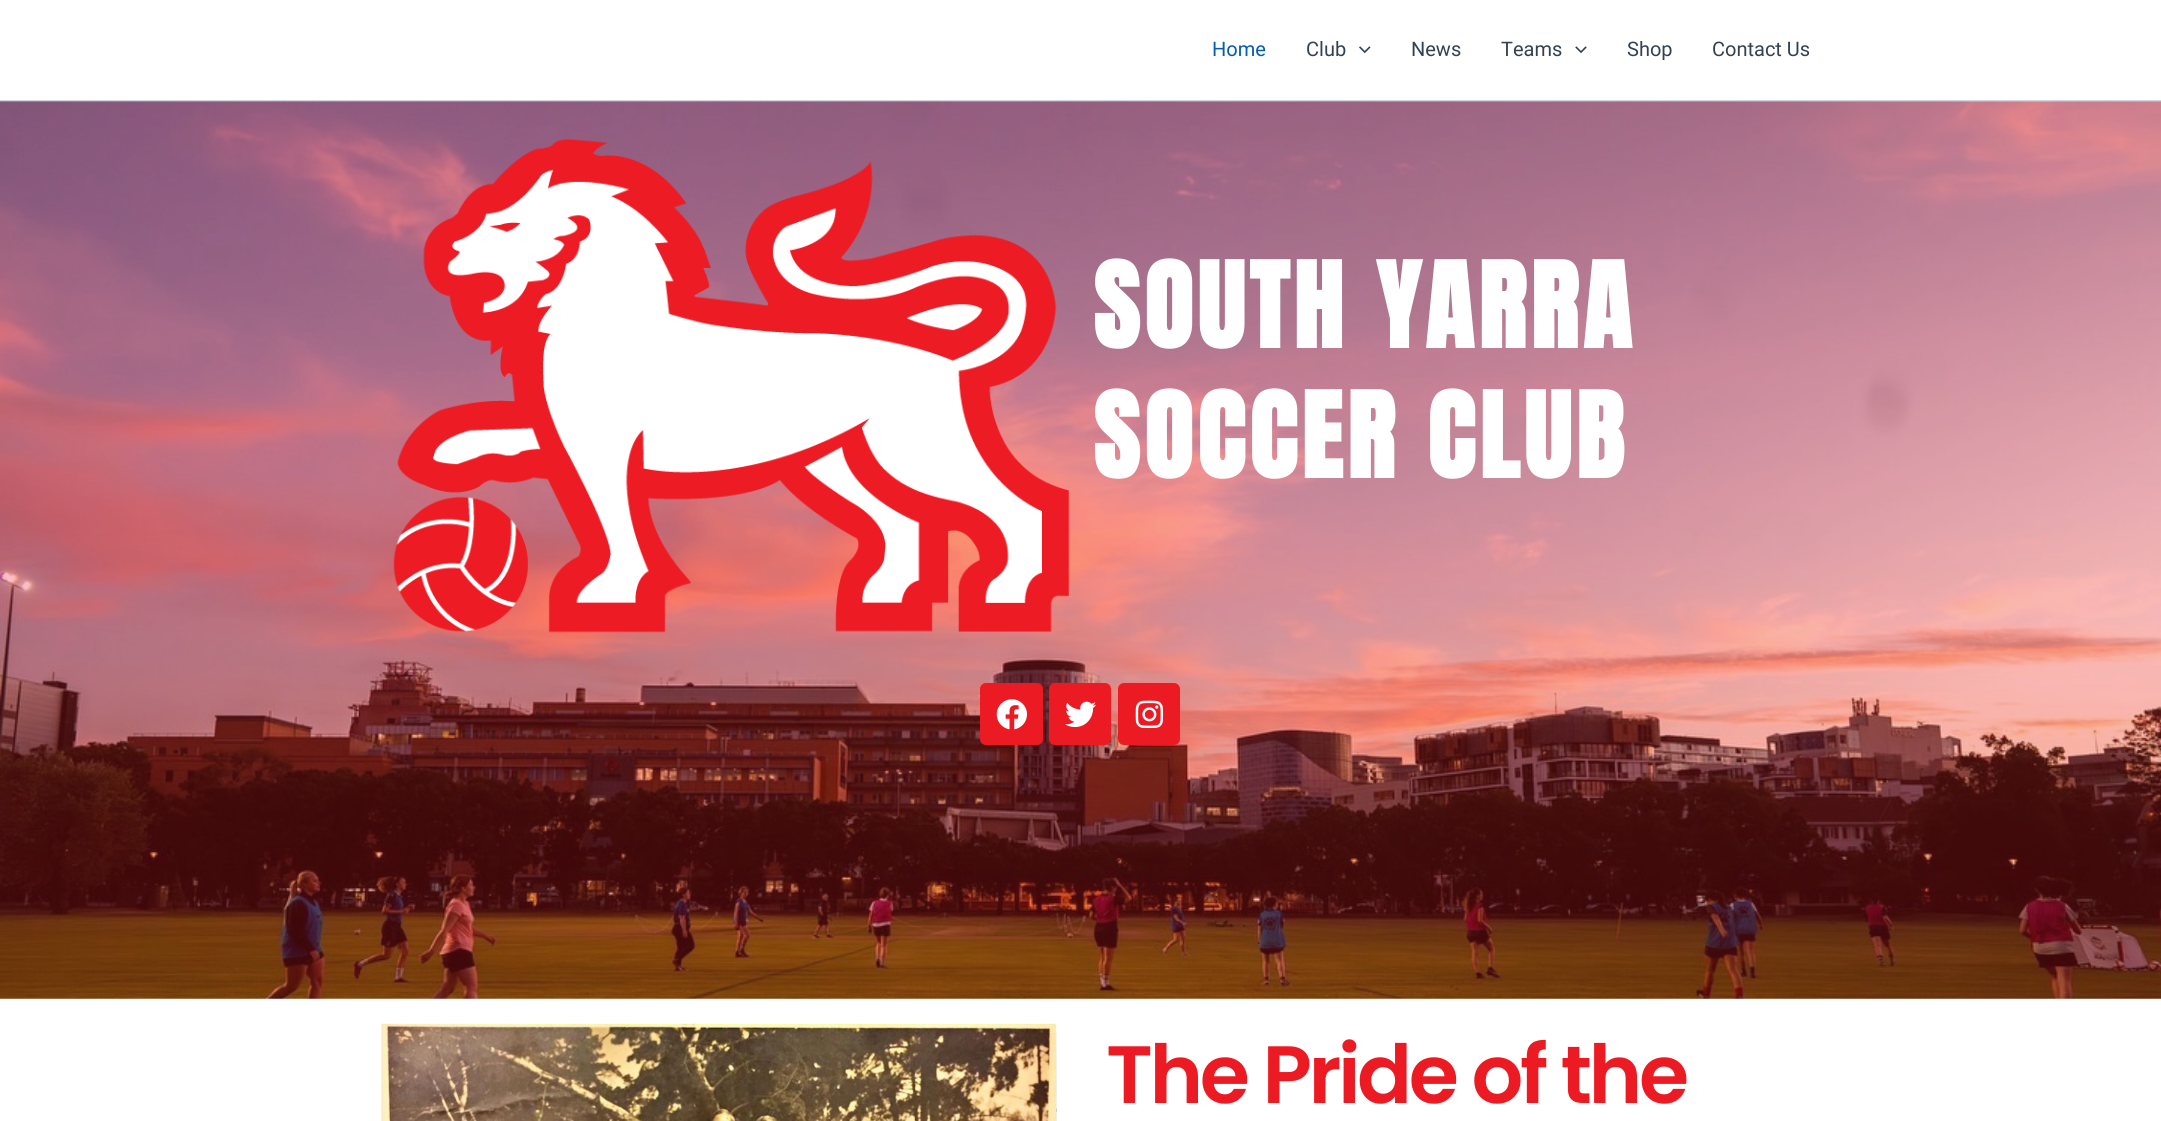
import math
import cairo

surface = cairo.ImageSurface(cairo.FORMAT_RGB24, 2161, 1121)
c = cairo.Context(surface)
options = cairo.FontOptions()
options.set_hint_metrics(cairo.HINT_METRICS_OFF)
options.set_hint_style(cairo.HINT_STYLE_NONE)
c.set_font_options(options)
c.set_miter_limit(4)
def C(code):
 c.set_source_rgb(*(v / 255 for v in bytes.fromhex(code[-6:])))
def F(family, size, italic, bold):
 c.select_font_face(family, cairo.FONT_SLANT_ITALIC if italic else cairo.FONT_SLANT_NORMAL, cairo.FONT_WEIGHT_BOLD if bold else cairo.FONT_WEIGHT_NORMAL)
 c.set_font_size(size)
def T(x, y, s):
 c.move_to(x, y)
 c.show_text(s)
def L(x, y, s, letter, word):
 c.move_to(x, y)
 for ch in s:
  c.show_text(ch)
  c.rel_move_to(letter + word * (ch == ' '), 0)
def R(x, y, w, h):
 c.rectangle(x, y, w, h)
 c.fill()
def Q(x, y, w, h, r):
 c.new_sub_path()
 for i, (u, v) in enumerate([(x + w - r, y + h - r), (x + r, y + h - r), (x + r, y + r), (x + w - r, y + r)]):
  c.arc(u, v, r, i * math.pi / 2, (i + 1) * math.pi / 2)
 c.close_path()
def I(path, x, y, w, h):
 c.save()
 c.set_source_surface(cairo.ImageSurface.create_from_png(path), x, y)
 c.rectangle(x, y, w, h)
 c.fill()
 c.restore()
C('ffffff')
c.paint()
C('d1d5db')
R(0,100,2161,1)
F('Roboto',20,0,0)
C('045cb4')
T(1212,56,'Home')
C('334155')
T(1306,56,'Club')
I('1.png',1359,46,12,8)
T(1411,56,'News')
T(1501,56,'Teams')
I('2.png',1575,46,12,8)
T(1627,56,'Shop')
T(1712,56,'Contact Us')
I('3.png',0,101,2161,898)
I('4.png',393,138,676,495)
F('Anton',100,0,1)
C('ffffff')
L(1093,348,'SOUTH YARRA',4.6,0)
L(1093,478,'SOCCER CLUB',4.6,0)
C('ec1b23')
Q(980,683,63,62,6)
c.fill()
I('5.png',996,699,31,31)
Q(1049,683,62,62,6)
c.fill()
I('6.png',1065,701,31,27)
Q(1118,683,62,62,6)
c.fill()
I('7.png',1135,700,29,29)
I('8.png',381,1023,675,98)
I('9.png',1056,1024,1,97)
F('Poppins SemiBold',81.25,0,0)
L(1106,1103,'The Pride of the',-3.4,0)
surface.write_to_png('o.png')
